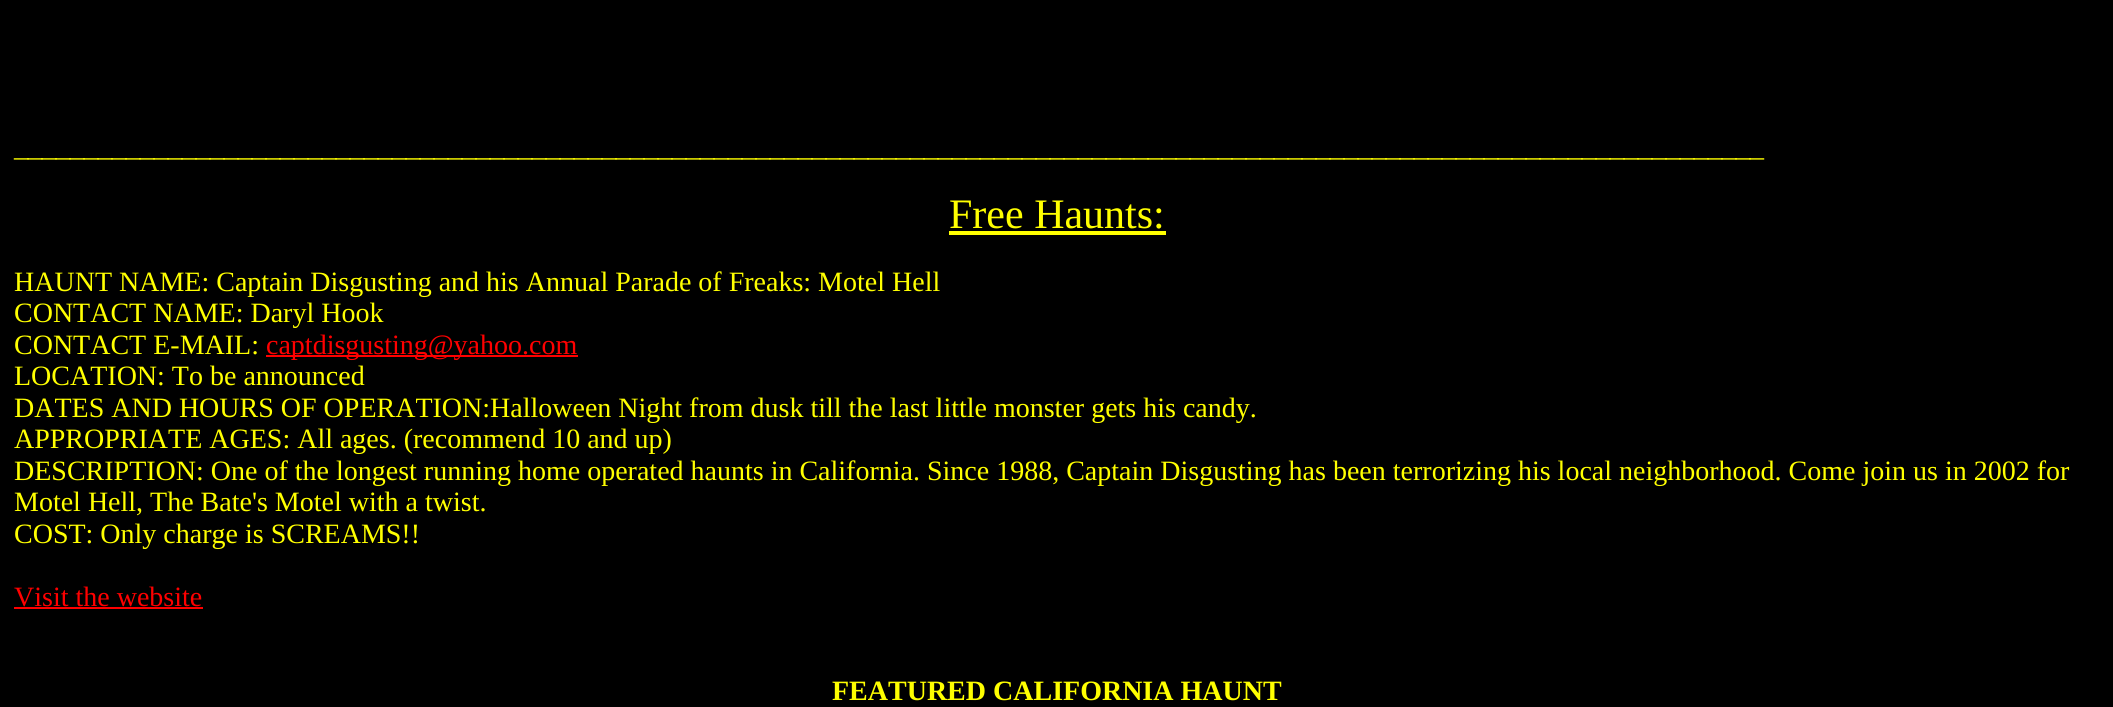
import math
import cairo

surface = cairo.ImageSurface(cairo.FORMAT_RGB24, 2113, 707)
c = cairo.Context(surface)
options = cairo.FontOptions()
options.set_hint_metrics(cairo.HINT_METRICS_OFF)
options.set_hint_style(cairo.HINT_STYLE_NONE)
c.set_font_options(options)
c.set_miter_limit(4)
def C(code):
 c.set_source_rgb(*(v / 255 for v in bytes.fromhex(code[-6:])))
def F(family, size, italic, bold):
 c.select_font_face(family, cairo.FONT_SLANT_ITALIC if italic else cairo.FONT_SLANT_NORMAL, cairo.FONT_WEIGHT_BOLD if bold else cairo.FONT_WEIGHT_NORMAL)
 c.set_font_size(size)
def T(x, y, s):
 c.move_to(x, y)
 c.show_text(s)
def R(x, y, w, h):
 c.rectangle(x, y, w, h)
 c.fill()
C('000000')
c.paint()
F('Liberation Serif',28,0,0)
C('ffff00')
T(14,156,'_____________________________________________________________________________________________________________________________')
F('Liberation Serif',42,0,0)
T(949,228,'Free Haunts:')
R(949,231,217,4)
F('Liberation Serif',28,0,0)
T(14,291,'HAUNT NAME: Captain Disgusting and his Annual Parade of Freaks: Motel Hell')
T(14,322,'CONTACT NAME: Daryl Hook')
T(14,354,'CONTACT E-MAIL:')
C('ff0000')
R(266,355,312,2)
T(266,354,'captdisgusting@yahoo.com')
C('ffff00')
T(14,385,'LOCATION: To be announced')
T(14,417,'DATES AND HOURS OF OPERATION:Halloween Night from dusk till the last little monster gets his candy.')
T(14,448,'APPROPRIATE AGES: All ages. (recommend 10 and up)')
T(14,480,'DESCRIPTION: One of the longest running home operated haunts in California. Since 1988, Captain Disgusting has been terrorizing his local neighborhood. Come join us in 2002 for')
T(14,511,'Motel Hell, The Bate\'s Motel with a twist.')
T(14,543,'COST: Only charge is SCREAMS!!')
C('ff0000')
T(14,606,'Visit the website')
R(14,607,189,2)
F('Liberation Serif',28,0,1)
C('ffff00')
T(832,700,'FEATURED CALIFORNIA HAUNT')
surface.write_to_png('o.png')
